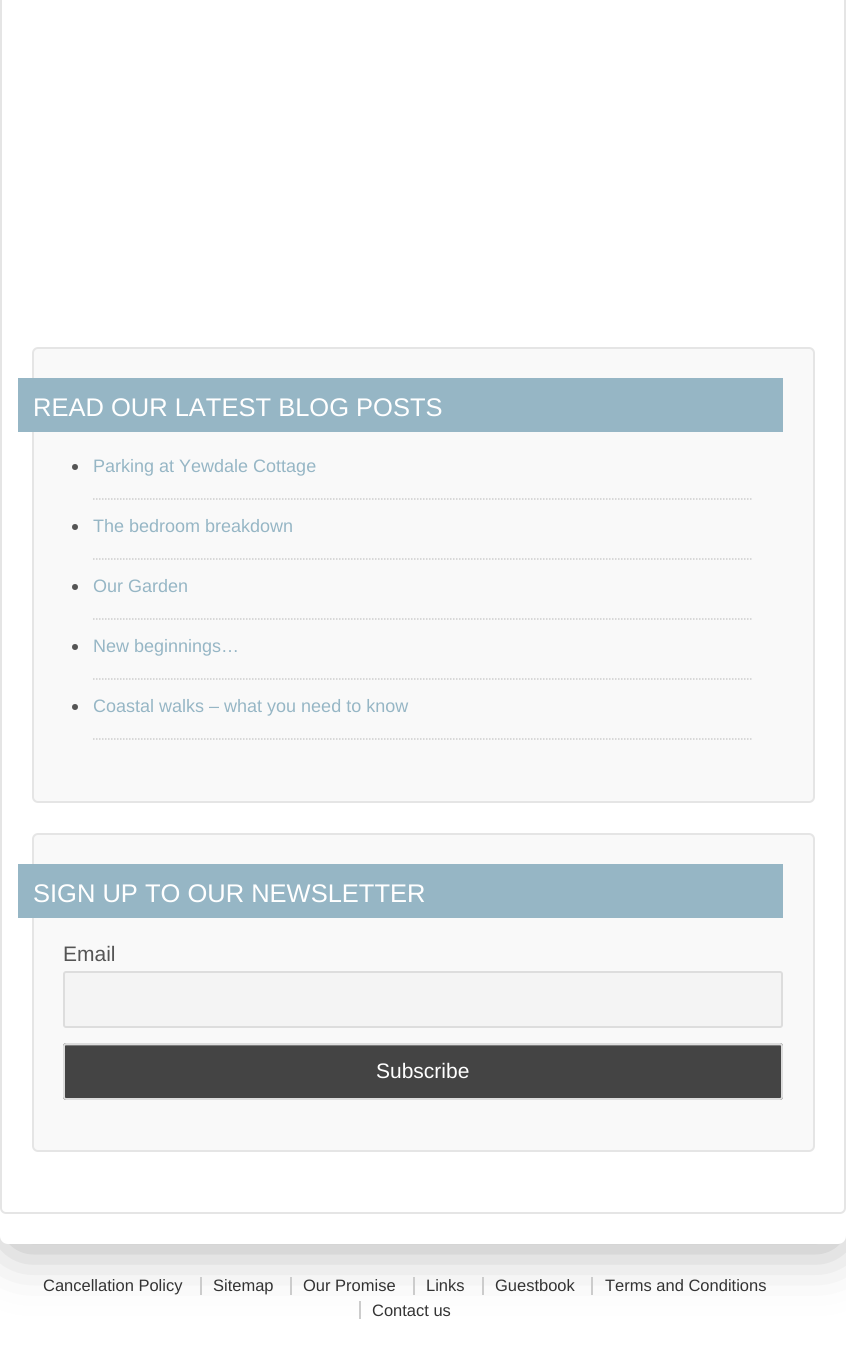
import math
import cairo

surface = cairo.ImageSurface(cairo.FORMAT_RGB24, 846, 1365)
c = cairo.Context(surface)
options = cairo.FontOptions()
options.set_hint_metrics(cairo.HINT_METRICS_OFF)
options.set_hint_style(cairo.HINT_STYLE_NONE)
c.set_font_options(options)
c.set_miter_limit(4)
def C(code):
 c.set_source_rgb(*(v / 255 for v in bytes.fromhex(code[-6:])))
def F(family, size, italic, bold):
 c.select_font_face(family, cairo.FONT_SLANT_ITALIC if italic else cairo.FONT_SLANT_NORMAL, cairo.FONT_WEIGHT_BOLD if bold else cairo.FONT_WEIGHT_NORMAL)
 c.set_font_size(size)
def T(x, y, s):
 c.move_to(x, y)
 c.show_text(s)
def R(x, y, w, h):
 c.rectangle(x, y, w, h)
 c.fill()
def Q(x, y, w, h, r):
 c.new_sub_path()
 for i, (u, v) in enumerate([(x + w - r, y + h - r), (x + r, y + h - r), (x + r, y + r), (x + w - r, y + r)]):
  c.arc(u, v, r, i * math.pi / 2, (i + 1) * math.pi / 2)
 c.close_path()
def S(x, y, w, h, r, blur, alpha):
 c.push_group_with_content(cairo.CONTENT_ALPHA)
 c.set_operator(cairo.OPERATOR_SOURCE)
 for i in range(15, -16, -2):
  e = blur * i / 6
  if min(w, h) + 2 * e > 0:
   c.set_source_rgba(0, 0, 0, alpha * math.erfc((i - 1) / 8.5) / 2)
   Q(x - e, y - e, w + 2 * e, h + 2 * e, max(0, min(r + e + blur * .6, min(w, h) / 2 + e)))
   c.fill()
 c.mask(c.pop_group())
C('ffffff')
c.paint()
C('949494')
S(15,-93,819,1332,0,31,1)
C('ffffff')
Q(0,-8,846,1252,8)
c.fill()
Q(1,-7,844,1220,5)
C('e5e5e5')
c.stroke()
C('f9f9f9')
Q(33,348,781,454,5)
c.fill_preserve()
C('e5e5e5')
c.stroke()
C('96b6c5')
R(18,378,765,54)
F('Liberation Sans',25.5,0,0)
C('ffffff')
T(33,416,'READ OUR LATEST BLOG POSTS')
c.new_path()
c.move_to(93,499)
c.line_to(751.5,499)
C('cccccc')
c.set_line_width(1.5)
c.set_dash([1.5,1.5])
c.stroke()
C('555555')
c.arc(75,467,3,0,2 * math.pi)
c.fill()
F('Liberation Sans',18,0,0)
C('96b6c5')
T(93,472,'Parking at Yewdale Cottage')
c.new_path()
c.move_to(93,559)
c.line_to(751.5,559)
C('cccccc')
c.stroke()
C('555555')
c.arc(75,527,3,0,2 * math.pi)
c.fill()
C('96b6c5')
T(93,532,'The bedroom breakdown')
c.new_path()
c.move_to(93,619)
c.line_to(751.5,619)
C('cccccc')
c.stroke()
C('555555')
c.arc(75,587,3,0,2 * math.pi)
c.fill()
C('96b6c5')
T(93,592,'Our Garden')
c.new_path()
c.move_to(93,679)
c.line_to(751.5,679)
C('cccccc')
c.stroke()
C('555555')
c.arc(75,647,3,0,2 * math.pi)
c.fill()
C('96b6c5')
T(93,652,'New beginnings…')
c.new_path()
c.move_to(93,739)
c.line_to(751.5,739)
C('cccccc')
c.stroke()
C('555555')
c.arc(75,707,3,0,2 * math.pi)
c.fill()
C('96b6c5')
T(93,712,'Coastal walks – what you need to know')
C('f9f9f9')
Q(33,834,781,317,5)
c.fill_preserve()
C('e5e5e5')
c.set_line_width(2)
c.set_dash([])
c.stroke()
C('96b6c5')
R(18,864,765,54)
F('Liberation Sans',25.5,0,0)
C('ffffff')
T(33,902,'SIGN UP TO OUR NEWSLETTER')
F('Liberation Sans',21,0,0)
C('555555')
T(63,961,'Email')
C('f4f4f4')
Q(64,972,718,55,2)
c.fill_preserve()
C('dddddd')
c.stroke()
C('444444')
Q(63,1043,720,57,3)
c.fill()
C('7c7c7c')
c.new_path()
c.move_to(66,1046)
c.line_to(780,1046)
c.curve_to(781,1046,782,1046,782,1047)
c.line_to(782,1045)
c.line_to(780,1044)
c.line_to(66,1044)
c.line_to(65,1045)
c.line_to(65,1046)
c.close_path()
c.fill()
Q(64,1044,718,55,2)
C('dddddd')
c.stroke()
C('ffffff')
T(376,1078,'Subscribe')
F('Liberation Sans',16.5,0,0)
C('333333')
T(43,1291,'Cancellation Policy')
T(213,1291,'Sitemap')
C('cccccc')
R(200,1277,2,18)
C('333333')
T(303,1291,'Our Promise')
C('cccccc')
R(290,1277,2,18)
C('333333')
T(426,1291,'Links')
C('cccccc')
R(413,1277,2,18)
C('333333')
T(495,1291,'Guestbook')
C('cccccc')
R(482,1277,2,18)
C('333333')
T(605,1291,'Terms and Conditions')
C('cccccc')
R(591,1277,2,18)
C('333333')
T(372,1316,'Contact us')
C('cccccc')
R(359,1301,2,18)
surface.write_to_png('o.png')
